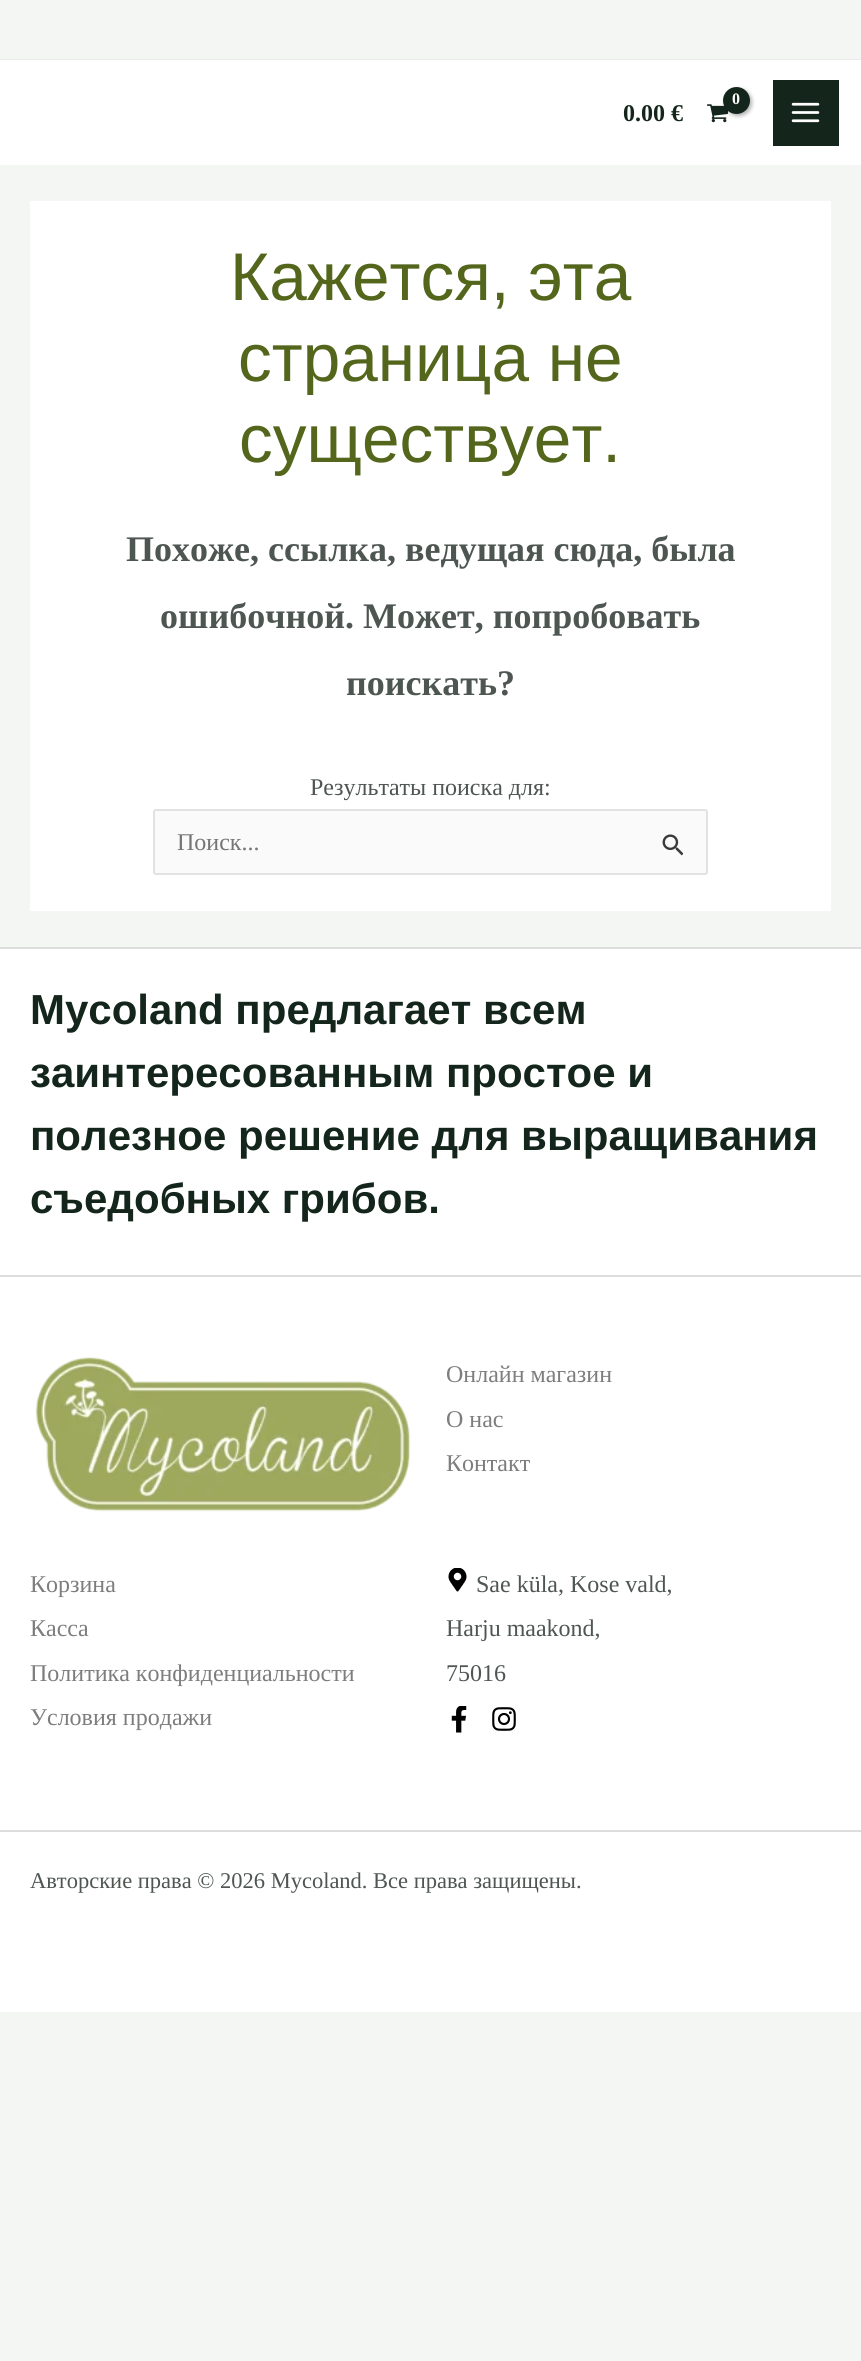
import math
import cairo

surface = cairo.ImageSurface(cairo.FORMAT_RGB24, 861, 2361)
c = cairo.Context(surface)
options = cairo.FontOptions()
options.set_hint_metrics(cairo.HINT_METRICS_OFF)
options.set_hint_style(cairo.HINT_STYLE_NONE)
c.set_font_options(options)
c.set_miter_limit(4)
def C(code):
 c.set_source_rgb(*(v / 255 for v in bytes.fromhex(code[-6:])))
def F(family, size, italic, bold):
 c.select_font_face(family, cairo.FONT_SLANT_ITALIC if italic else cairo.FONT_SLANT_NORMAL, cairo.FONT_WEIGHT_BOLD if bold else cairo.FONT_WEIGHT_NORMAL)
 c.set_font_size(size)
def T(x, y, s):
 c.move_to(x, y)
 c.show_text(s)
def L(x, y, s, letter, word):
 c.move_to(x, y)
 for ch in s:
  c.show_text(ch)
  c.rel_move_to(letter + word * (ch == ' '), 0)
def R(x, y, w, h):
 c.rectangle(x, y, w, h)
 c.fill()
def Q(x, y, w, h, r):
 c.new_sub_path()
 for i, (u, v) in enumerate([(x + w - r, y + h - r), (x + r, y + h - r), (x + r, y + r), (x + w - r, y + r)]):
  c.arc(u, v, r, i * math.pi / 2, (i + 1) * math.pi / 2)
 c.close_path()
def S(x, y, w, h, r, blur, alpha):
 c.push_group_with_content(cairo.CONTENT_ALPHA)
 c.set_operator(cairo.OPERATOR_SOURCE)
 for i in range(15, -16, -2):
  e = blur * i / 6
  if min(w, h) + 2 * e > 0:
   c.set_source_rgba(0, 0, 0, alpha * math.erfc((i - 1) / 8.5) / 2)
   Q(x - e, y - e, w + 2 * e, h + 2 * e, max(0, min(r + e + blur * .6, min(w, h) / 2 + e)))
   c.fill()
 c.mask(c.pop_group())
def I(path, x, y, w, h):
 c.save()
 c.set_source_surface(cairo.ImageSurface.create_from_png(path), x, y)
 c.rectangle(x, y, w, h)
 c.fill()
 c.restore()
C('f4f6f4')
c.paint()
C('eaeaea')
R(0,59,861,1)
C('ffffff')
R(0,60,861,105)
I('1.png',707,104,22,19)
C('000000')
S(725,89,27,27,13.5,2,.3)
C('14261c')
c.arc(736.5,100.5,13.5,0,2 * math.pi)
c.fill()
F('Liberation Serif',16,0,1)
C('ffffff')
L(732,104,'0',-1,0)
F('Liberation Serif',24,0,1)
C('14261c')
T(623,121,'0.00 €')
R(773,80,66,66)
I('2.png',791,102,29,21)
C('ffffff')
R(30,201,801,710)
F('Liberation Sans',67.5,0,0)
C('53661c')
T(230,300,'Кажется, эта')
T(238,381,'страница не')
T(239,462,'существует.')
F('Liberation Serif',36,0,1)
C('4e5652')
T(126,561,'Похоже, ссылка, ведущая сюда, была')
T(160,628,'ошибочной. Может, попробовать')
T(346,695,'поискать?')
F('Liberation Serif',24,0,0)
T(310,795,'Результаты поиска для:')
C('fafafa')
Q(154,810,553,64,2)
c.fill_preserve()
C('e2e2e2')
c.stroke()
C('757575')
T(177,850,'Поиск...')
I('3.png',662,834,21,22)
C('ffffff')
R(0,949,861,1063)
C('dddddd')
R(0,947,861,2)
F('Liberation Sans',42,0,1)
C('14261c')
T(30,1024,'Mycoland предлагает всем')
T(30,1087,'заинтересованным простое и')
T(30,1150,'полезное решение для выращивания')
T(30,1213,'съедобных грибов.')
C('dddddd')
R(0,1275,861,2)
I('4.png',35,1357,376,155)
F('Liberation Serif',24,0,0)
C('7d7d7d')
T(446,1382,'Онлайн магазин')
T(446,1427,'О нас')
T(446,1471,'Контакт')
T(30,1592,'Корзина')
T(30,1636,'Касса')
T(30,1681,'Политика конфиденциальности')
T(30,1725,'Условия продажи')
I('5.png',448,1568,19,24)
C('4e5652')
T(476,1592,'Sae küla, Kose vald,')
T(446,1636,'Harju maakond,')
T(446,1681,'75016')
I('6.png',451,1706,16,27)
I('7.png',492,1707,24,24)
C('dddddd')
R(0,1830,861,2)
F('Liberation Serif',22.5,0,0)
C('4e5652')
T(30,1888,'Авторские права © 2026 Mycoland. Все права защищены.')
surface.write_to_png('o.png')
